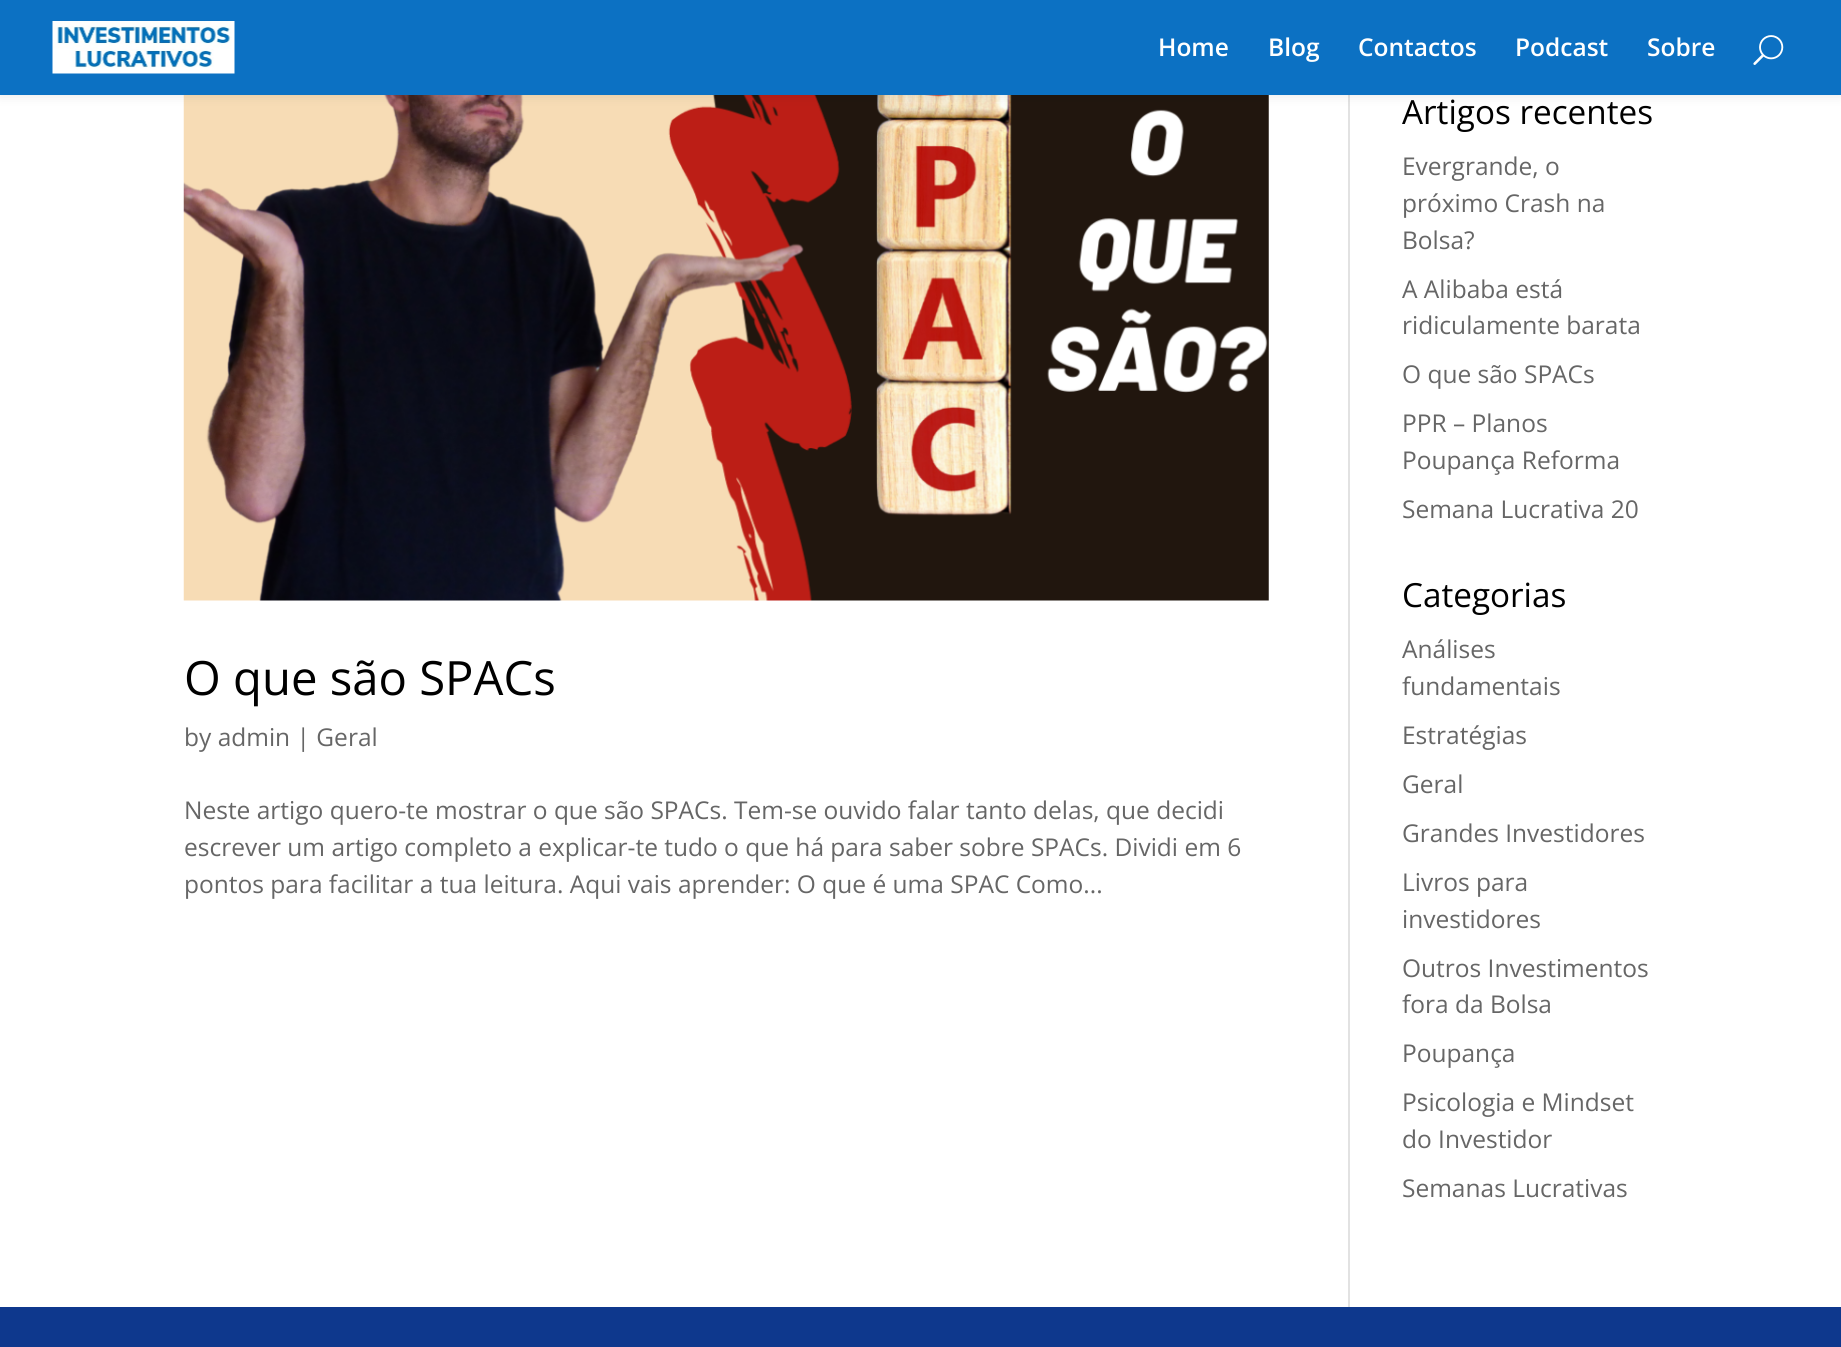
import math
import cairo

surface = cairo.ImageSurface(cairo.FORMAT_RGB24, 1841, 1347)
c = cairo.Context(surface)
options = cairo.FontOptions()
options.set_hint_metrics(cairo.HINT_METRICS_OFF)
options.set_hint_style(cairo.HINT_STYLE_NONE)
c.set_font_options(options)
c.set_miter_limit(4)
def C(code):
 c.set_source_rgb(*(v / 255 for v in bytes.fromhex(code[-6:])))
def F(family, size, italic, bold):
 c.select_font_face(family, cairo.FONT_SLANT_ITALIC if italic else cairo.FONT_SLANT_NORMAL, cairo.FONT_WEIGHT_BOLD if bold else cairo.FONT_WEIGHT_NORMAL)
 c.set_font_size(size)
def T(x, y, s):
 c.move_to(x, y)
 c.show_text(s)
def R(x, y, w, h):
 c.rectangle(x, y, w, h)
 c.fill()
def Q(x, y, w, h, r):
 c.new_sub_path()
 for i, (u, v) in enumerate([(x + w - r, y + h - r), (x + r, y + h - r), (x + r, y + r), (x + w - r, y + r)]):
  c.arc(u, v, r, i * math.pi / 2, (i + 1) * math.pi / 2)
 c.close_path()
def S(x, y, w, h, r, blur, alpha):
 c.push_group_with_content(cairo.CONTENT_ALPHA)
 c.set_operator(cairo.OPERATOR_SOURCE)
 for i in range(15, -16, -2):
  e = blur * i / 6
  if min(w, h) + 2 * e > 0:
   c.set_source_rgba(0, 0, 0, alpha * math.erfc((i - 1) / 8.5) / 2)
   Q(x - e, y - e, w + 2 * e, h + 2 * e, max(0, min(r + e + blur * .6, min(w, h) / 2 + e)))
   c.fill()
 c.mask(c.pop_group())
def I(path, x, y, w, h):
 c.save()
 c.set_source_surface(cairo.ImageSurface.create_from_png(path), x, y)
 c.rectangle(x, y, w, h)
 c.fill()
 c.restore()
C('ffffff')
c.paint()
C('e2e2e2')
R(1348,95,2,1212)
I('3.png',183,95,1086,506)
C('000000')
S(0,0,1841,95,0,6,.1)
C('0c71c3')
R(0,0,1841,95)
I('1.png',52,21,183,53)
F('Open Sans SemiBold',24.5,0,0)
C('ffffff')
T(1158,56,'Home')
T(1268,56,'Blog')
T(1358,56,'Contactos')
T(1515,56,'Podcast')
T(1647,56,'Sobre')
I('2.png',1753,35,31,30)
F('Open Sans',47.25,0,0)
C('000000')
T(184,695,'O que são SPACs')
F('Open Sans',24.5,0,0)
C('666666')
T(184,746,'by admin | Geral')
T(184,819,'Neste artigo quero-te mostrar o que são SPACs. Tem-se ouvido falar tanto delas, que decidi')
T(184,856,'escrever um artigo completo a explicar-te tudo o que há para saber sobre SPACs. Dividi em 6')
T(184,893,'pontos para facilitar a tua leitura. Aqui vais aprender: O que é uma SPAC Como...')
F('Open Sans',33.25,0,0)
C('000000')
T(1402,124,'Artigos recentes')
F('Open Sans',24.5,0,0)
C('666666')
T(1402,175,'Evergrande, o')
T(1402,212,'próximo Crash na')
T(1402,249,'Bolsa?')
T(1402,298,'A Alibaba está')
T(1402,334,'ridiculamente barata')
T(1402,383,'O que são SPACs')
T(1402,432,'PPR – Planos')
T(1402,469,'Poupança Reforma')
T(1402,518,'Semana Lucrativa 20')
F('Open Sans',33.25,0,0)
C('000000')
T(1402,607,'Categorias')
F('Open Sans',24.5,0,0)
C('666666')
T(1402,658,'Análises')
T(1402,695,'fundamentais')
T(1402,744,'Estratégias')
T(1402,793,'Geral')
T(1402,842,'Grandes Investidores')
T(1402,891,'Livros para')
T(1402,928,'investidores')
T(1402,977,'Outros Investimentos')
T(1402,1013,'fora da Bolsa')
T(1402,1062,'Poupança')
T(1402,1111,'Psicologia e Mindset')
T(1402,1148,'do Investidor')
T(1402,1197,'Semanas Lucrativas')
C('0e388d')
R(0,1307,1841,40)
surface.write_to_png('o.png')
